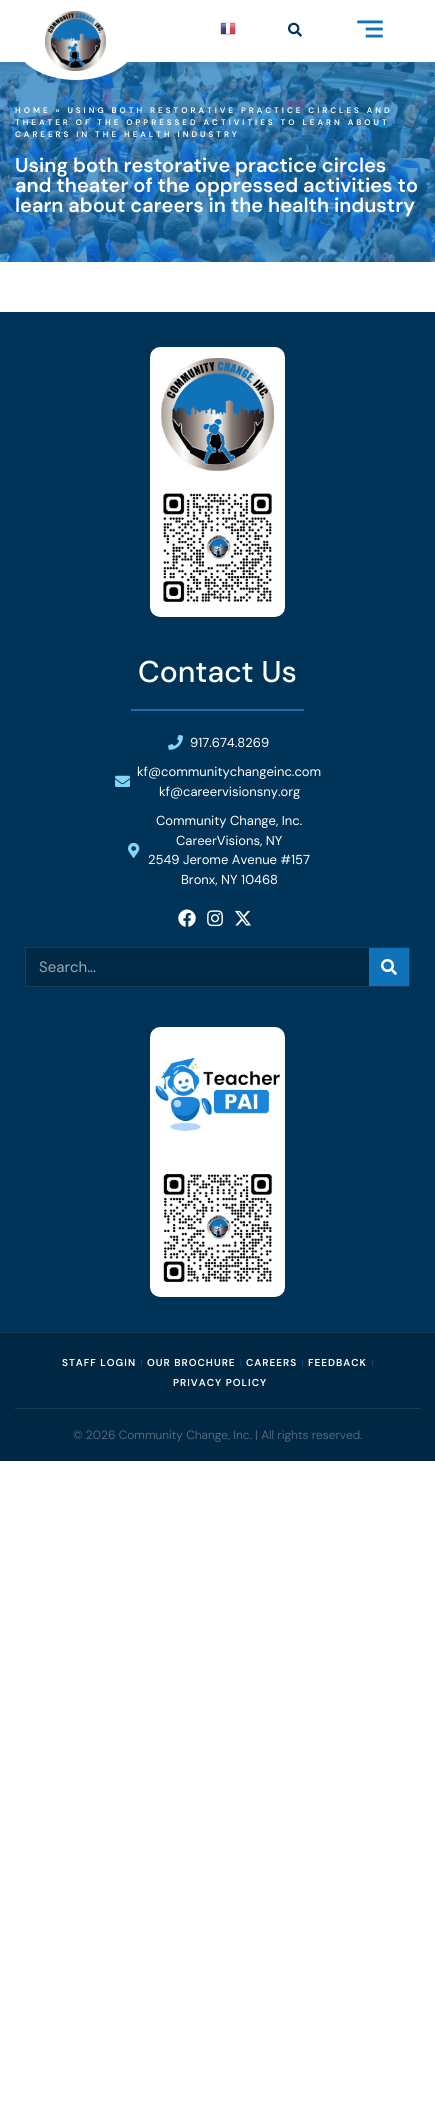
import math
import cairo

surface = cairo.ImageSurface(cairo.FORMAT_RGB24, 435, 2112)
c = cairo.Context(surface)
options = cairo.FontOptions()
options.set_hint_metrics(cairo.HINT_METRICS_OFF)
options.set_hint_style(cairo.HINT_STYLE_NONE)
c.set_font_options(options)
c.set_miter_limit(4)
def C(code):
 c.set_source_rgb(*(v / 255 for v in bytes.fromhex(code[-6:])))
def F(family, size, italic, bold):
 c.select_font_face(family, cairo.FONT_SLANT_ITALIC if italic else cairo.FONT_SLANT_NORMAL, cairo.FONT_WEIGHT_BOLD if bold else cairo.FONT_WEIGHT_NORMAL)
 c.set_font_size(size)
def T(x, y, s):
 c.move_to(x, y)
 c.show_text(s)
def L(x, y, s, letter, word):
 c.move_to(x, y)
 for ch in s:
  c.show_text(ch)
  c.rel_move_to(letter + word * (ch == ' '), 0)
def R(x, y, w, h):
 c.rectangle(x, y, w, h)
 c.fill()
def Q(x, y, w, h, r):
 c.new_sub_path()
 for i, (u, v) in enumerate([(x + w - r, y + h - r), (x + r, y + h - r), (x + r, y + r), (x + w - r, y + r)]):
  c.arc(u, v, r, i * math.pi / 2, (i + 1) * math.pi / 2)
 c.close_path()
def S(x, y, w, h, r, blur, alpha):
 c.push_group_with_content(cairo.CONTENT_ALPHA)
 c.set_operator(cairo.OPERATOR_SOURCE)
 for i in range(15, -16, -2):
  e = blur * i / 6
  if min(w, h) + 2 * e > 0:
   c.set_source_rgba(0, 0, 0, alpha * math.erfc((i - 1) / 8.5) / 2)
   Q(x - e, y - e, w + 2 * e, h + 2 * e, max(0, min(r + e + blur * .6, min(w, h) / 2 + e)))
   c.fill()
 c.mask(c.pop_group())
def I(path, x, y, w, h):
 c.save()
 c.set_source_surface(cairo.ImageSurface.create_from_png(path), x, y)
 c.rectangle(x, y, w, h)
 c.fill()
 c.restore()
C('ffffff')
c.paint()
I('5.png',0,62,435,200)
c.save()
c.rectangle(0,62,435,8)
c.clip()
C('000000')
S(0,0,435,62,0,7.5,.15)
c.restore()
C('ffffff')
c.new_path()
c.move_to(76,2)
c.curve_to(109.5,2,137,19.5,137,41)
c.curve_to(137,62.5,109.5,80,76,80)
c.curve_to(42.5,80,15,62.5,15,41)
c.curve_to(15,19.5,42.5,2,76,2)
c.close_path()
c.fill()
I('1.png',45,11,61,60)
I('2.png',220,22,16,14)
I('3.png',288,22,14,15)
I('4.png',357,20,26,18)
F('DM Sans SemiBold',8,0,0)
L(15,113,'HOME » USING BOTH RESTORATIVE PRACTICE CIRCLES AND',3,0)
L(15,125,'THEATER OF THE OPPRESSED ACTIVITIES TO LEARN ABOUT',3,0)
L(15,137,'CAREERS IN THE HEALTH INDUSTRY',3,0)
F('DM Sans SemiBold',20,0,0)
T(15,172,'Using both restorative practice circles')
T(15,192,'and theater of the oppressed activities to')
T(15,212,'learn about careers in the health industry')
C('003358')
R(0,312,435,1020)
I('6.png',150,347,135,270)
F('DM Sans Medium',30,0,0)
C('ffffff')
T(138,682,'Contact Us')
C('1072b9')
R(131,709,173,2)
I('7.png',168,734,15,16)
F('DM Sans',13,0,0)
C('ffffff')
T(190,747,'917.674.8269')
I('8.png',115,775,15,12)
T(137,776,'kf@communitychangeinc.com')
T(159,796,'kf@careervisionsny.org')
I('9.png',128,842,12,16)
T(156,825,'Community Change, Inc.')
T(176,845,'CareerVisions, NY')
T(148,864,'2549 Jerome Avenue #157')
T(181,884,'Bronx, NY 10468')
I('10.png',178,909,18,18)
I('11.png',207,910,16,17)
I('12.png',235,910,16,16)
C('002946')
R(26,948,343,38)
c.rectangle(25.5,947.5,384,39)
C('1a3e59')
c.set_line_width(1)
c.stroke()
F('DM Sans',15,0,0)
C('99a9b5')
T(39,972,'Search...')
C('1072b9')
R(369,948,40,38)
I('13.png',381,959,16,16)
I('14.png',150,1027,135,270)
C('002744')
R(0,1333,435,128)
C('143853')
R(0,1332,435,1)
F('DM Sans SemiBold',10,0,0)
C('ffffff')
L(62,1366,'STAFF LOGIN',1,0)
C('074674')
R(141,1359,1,7)
C('ffffff')
L(147,1366,'OUR BROCHURE',1,0)
C('074674')
R(240,1359,1,7)
C('ffffff')
L(246,1366,'CAREERS',1,0)
C('074674')
R(302,1359,1,7)
C('ffffff')
L(308,1366,'FEEDBACK',1,0)
C('074674')
R(372,1359,1,7)
C('ffffff')
L(173,1386,'PRIVACY POLICY',1,0)
C('1c3f59')
R(15,1408,405,1)
F('DM Sans Light',12,0,0)
C('597385')
T(73,1439,'© 2026 Community Change, Inc. | All rights reserved.')
surface.write_to_png('o.png')
